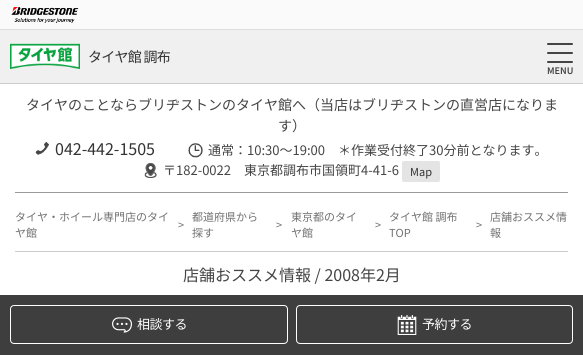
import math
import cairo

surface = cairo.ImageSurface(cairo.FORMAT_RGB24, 583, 355)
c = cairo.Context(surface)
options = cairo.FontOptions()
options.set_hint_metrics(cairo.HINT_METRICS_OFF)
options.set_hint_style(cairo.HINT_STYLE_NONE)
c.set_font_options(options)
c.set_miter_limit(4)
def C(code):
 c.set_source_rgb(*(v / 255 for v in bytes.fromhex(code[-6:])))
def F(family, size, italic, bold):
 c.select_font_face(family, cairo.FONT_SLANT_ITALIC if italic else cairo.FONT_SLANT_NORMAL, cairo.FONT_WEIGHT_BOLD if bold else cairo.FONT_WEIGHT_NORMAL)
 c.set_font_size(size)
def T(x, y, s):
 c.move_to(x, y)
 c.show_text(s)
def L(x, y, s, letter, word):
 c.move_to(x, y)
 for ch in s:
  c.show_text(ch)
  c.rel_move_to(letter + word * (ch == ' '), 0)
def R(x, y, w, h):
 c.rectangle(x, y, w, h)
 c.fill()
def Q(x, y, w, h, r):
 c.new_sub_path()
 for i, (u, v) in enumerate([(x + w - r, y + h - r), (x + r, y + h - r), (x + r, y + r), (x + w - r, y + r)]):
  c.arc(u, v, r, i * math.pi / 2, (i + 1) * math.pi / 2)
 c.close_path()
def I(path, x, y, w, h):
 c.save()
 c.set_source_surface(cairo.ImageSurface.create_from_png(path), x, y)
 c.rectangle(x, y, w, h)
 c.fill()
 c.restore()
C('ffffff')
c.paint()
C('fafafa')
R(0,0,583,29)
C('dddddd')
R(0,29,583,1)
I('1.png',11,7,68,16)
C('f0f0f0')
R(0,30,583,53)
C('cccccc')
R(0,83,583,1)
I('2.png',10,43,70,26)
F('Noto Sans JP',14,0,0)
C('333333')
L(88,62,'タイヤ館 調布',-.75,0)
C('454545')
Q(547,43,26,2,1)
c.fill()
Q(547,52,26,2,1)
c.fill()
Q(547,61,26,2,1)
c.fill()
F('Noto Sans JP SemiBold',9,0,0)
T(547,74,'MENU')
C('999999')
R(15,192,553,1)
F('Noto Sans JP',14,0,0)
C('454545')
T(26,110,'タイヤのことならブリヂストンのタイヤ館へ（当店はブリヂストンの直営店になりま')
T(278,131,'す）')
I('3.png',35,142,14,13)
F('Noto Sans JP',16,0,0)
C('333333')
T(55,155,'042-442-1505')
I('4.png',188,143,15,15)
F('Noto Sans JP',13,0,0)
C('454545')
T(208,155,'通常：10:30～19:00　＊作業受付終了30分前となります。')
I('5.png',144,163,13,15)
T(163,175,'〒182-0022　東京都調布市国領町4-41-6')
C('e4e4e4')
Q(402,161,38,21,2)
c.fill()
F('Noto Sans JP',11,0,0)
C('333333')
T(410,176,'Map')
C('727272')
T(15,221,'タイヤ・ホイール専門店のタイ')
T(15,237,'ヤ館')
T(178,229,'>')
T(192,221,'都道府県から')
T(192,237,'探す')
T(276,229,'>')
T(291,221,'東京都のタイ')
T(291,237,'ヤ館')
T(375,229,'>')
T(389,221,'タイヤ館 調布')
T(389,237,'TOP')
T(476,229,'>')
T(490,221,'店舗おススメ情')
T(490,237,'報')
C('cccccc')
R(15,251,553,1)
F('Noto Sans JP',16,0,0)
C('454545')
T(183,281,'店舗おススメ情報 / 2008年2月')
C('3e3e3e')
R(0,295,583,60)
Q(10.5,305.5,277,38,3.5)
C('ffffff')
c.set_line_width(1)
c.stroke()
I('6.png',112,317,20,16)
F('Noto Sans JP',13,0,0)
L(137,329,'相談する',-.5,0)
Q(296.5,305.5,276,38,3.5)
c.stroke()
I('7.png',397,315,20,20)
L(422,329,'予約する',-.5,0)
surface.write_to_png('o.png')
